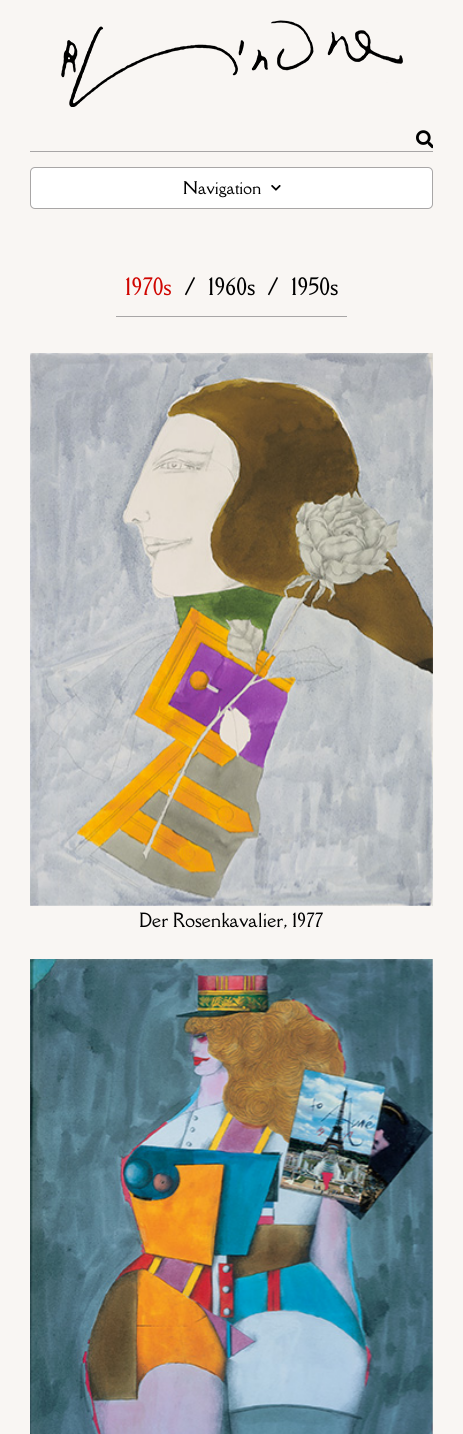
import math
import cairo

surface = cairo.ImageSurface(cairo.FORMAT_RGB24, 463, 1434)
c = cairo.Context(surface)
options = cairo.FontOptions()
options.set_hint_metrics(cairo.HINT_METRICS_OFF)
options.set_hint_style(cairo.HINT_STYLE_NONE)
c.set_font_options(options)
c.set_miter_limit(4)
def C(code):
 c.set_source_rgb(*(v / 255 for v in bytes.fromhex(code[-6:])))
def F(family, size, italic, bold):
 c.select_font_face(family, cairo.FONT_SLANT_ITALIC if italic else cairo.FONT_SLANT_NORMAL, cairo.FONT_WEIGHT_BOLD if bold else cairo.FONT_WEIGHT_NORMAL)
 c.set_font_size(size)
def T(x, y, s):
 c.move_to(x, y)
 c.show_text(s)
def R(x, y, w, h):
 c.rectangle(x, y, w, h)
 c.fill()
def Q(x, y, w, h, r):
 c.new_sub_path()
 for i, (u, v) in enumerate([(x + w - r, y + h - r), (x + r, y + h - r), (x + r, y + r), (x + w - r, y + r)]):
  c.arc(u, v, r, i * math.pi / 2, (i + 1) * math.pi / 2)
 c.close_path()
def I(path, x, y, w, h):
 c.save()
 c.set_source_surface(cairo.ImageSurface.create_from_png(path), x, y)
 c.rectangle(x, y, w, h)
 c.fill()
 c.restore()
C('f9f6f3')
c.paint()
I('1.png',61,20,342,87)
C('a8a6a6')
R(30,151,403,1)
I('2.png',416,130,17,19)
C('ffffff')
Q(30.5,167.5,402,41,4.5)
c.fill_preserve()
C('a8a6a6')
c.set_line_width(1)
c.stroke()
F('Della Respira',16,0,0)
C('000000')
T(183,194,'Navigation')
I('3.png',271,185,10,6)
F('Della Respira',22,0,0)
C('d00500')
T(125,295,'1970s')
C('000000')
T(184,295,'/')
T(208,295,'1960s')
T(267,295,'/')
T(291,295,'1950s')
C('a8a6a6')
R(116,316,231,1)
I('4.png',30,353,403,553)
F('Della Respira',18,0,0)
C('000000')
T(139,927,'Der Rosenkavalier, 1977')
I('5.png',30,959,403,475)
surface.write_to_png('o.png')
